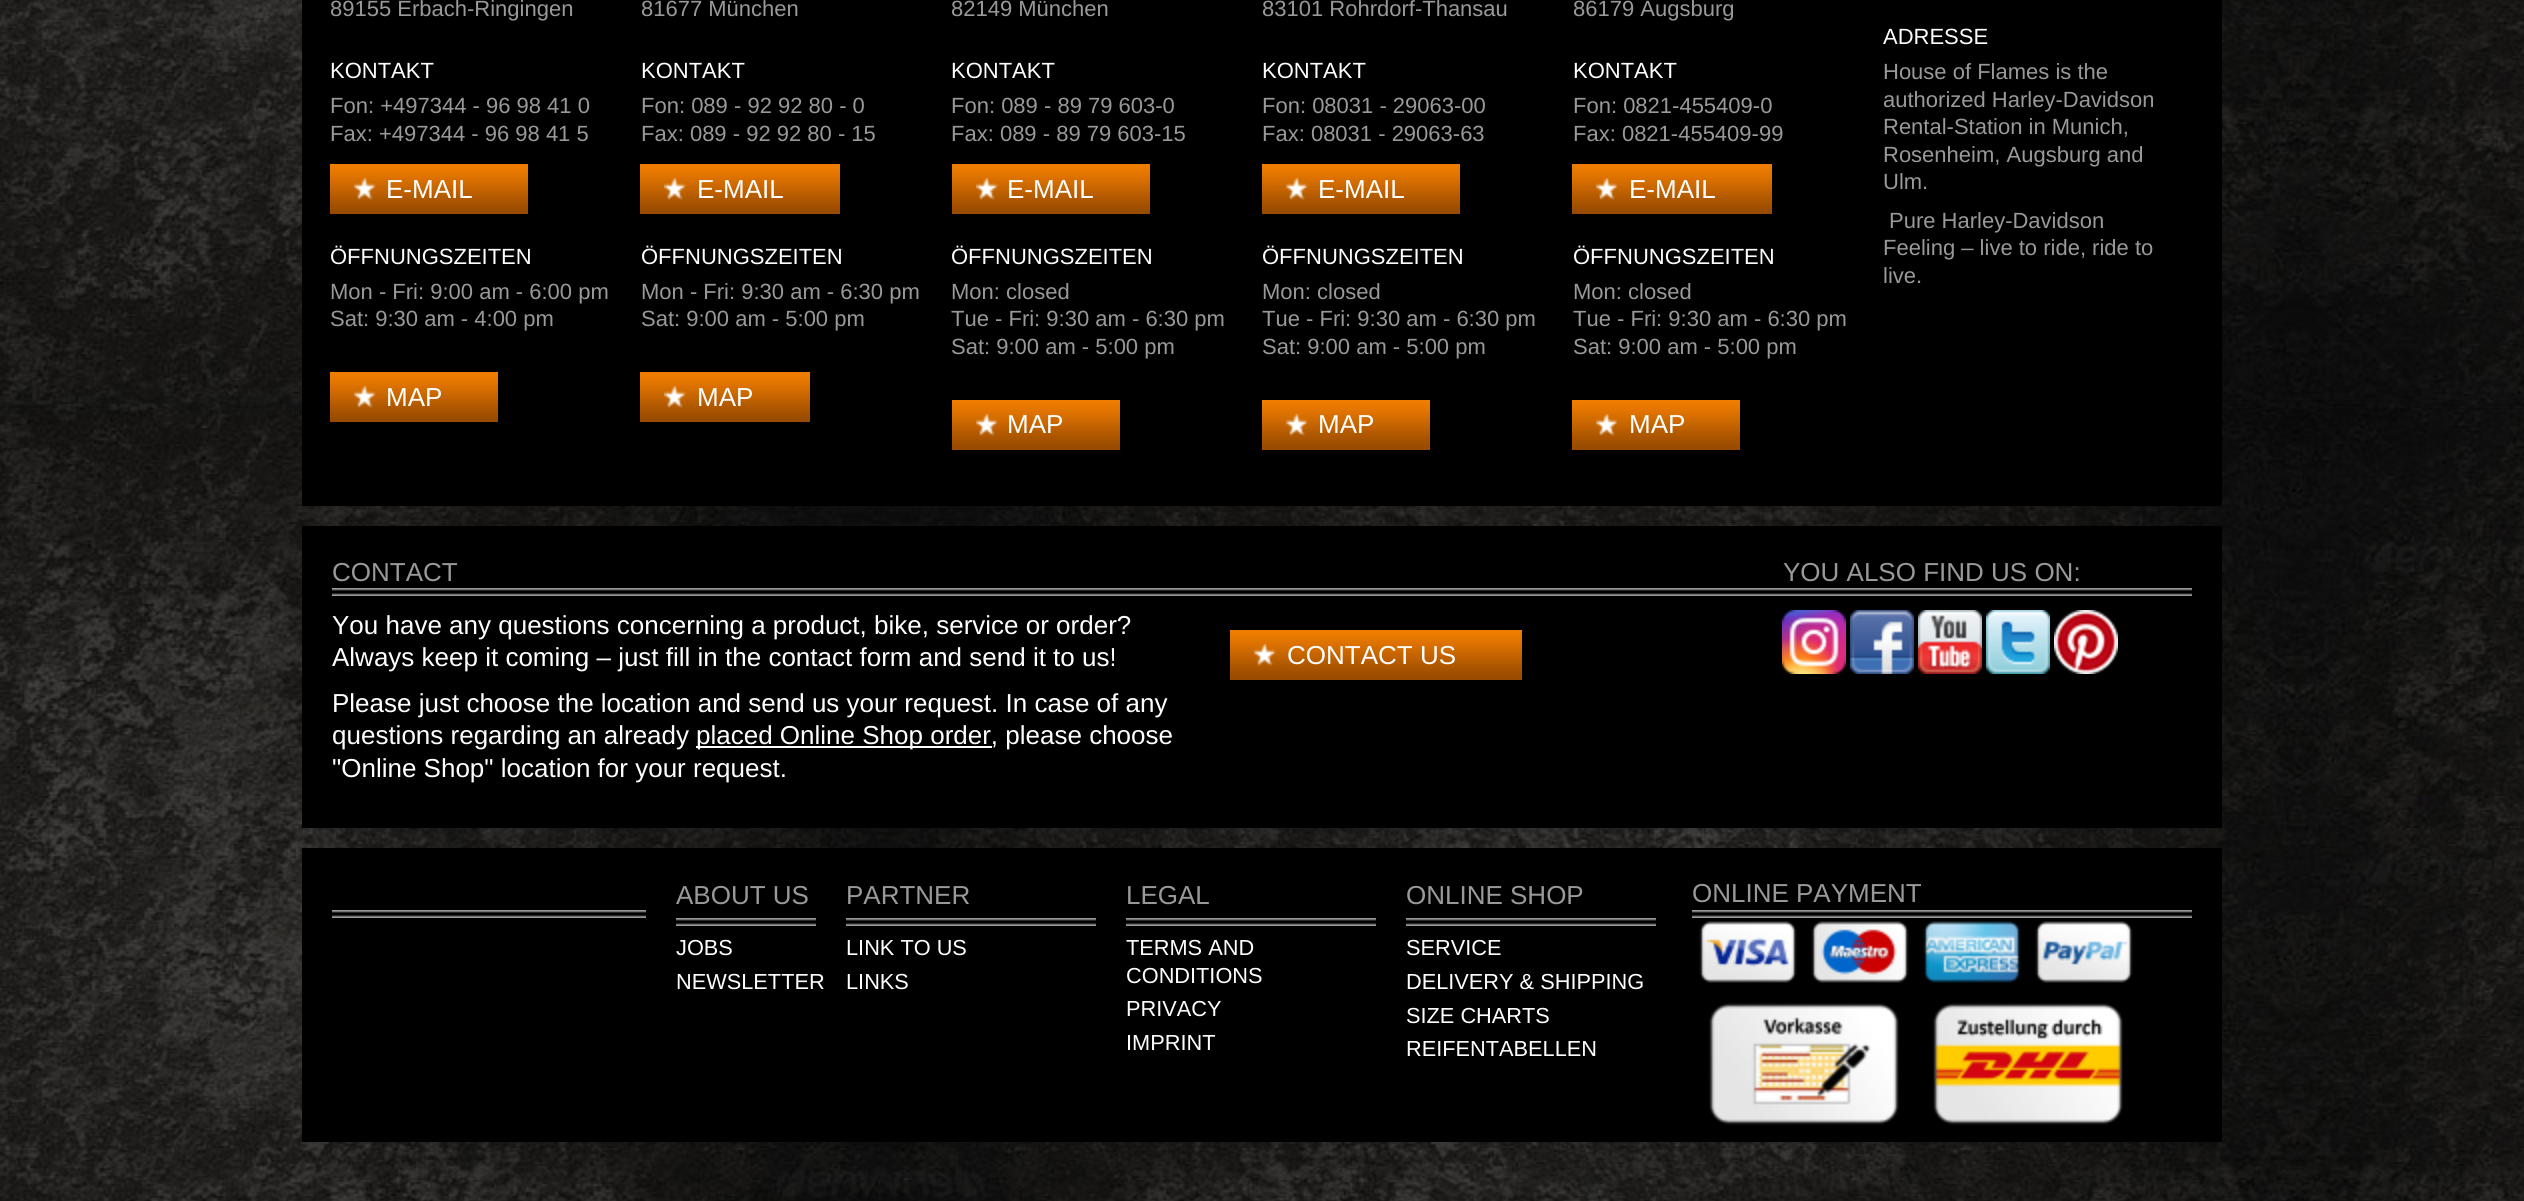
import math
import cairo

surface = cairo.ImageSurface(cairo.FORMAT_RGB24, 2524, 1201)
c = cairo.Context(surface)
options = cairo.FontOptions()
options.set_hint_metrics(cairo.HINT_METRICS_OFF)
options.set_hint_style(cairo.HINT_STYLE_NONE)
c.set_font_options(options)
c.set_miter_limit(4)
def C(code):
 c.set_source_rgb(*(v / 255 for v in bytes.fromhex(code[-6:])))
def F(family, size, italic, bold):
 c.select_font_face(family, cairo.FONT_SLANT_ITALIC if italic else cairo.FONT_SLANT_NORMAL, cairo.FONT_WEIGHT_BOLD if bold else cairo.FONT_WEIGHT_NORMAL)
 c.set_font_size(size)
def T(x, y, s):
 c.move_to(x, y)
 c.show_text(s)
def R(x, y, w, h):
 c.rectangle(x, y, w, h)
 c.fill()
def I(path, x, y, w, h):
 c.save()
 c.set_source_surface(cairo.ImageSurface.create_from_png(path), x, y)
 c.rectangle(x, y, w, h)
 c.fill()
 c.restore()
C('ffffff')
c.paint()
I('1.png',0,0,2524,1201)
C('000000')
R(302,0,1920,506)
F('Liberation Sans',22,0,0)
C('999999')
T(330,16,'89155 Erbach-Ringingen')
C('ffffff')
T(330,78,'KONTAKT')
C('999999')
T(330,113,'Fon: +497344 - 96 98 41 0')
T(330,141,'Fax: +497344 - 96 98 41 5')
I('2.png',330,164,198,50)
I('3.png',354,178,22,22)
F('Liberation Sans',26,0,0)
C('ffffff')
T(386,198,'E-MAIL')
F('Liberation Sans',22,0,0)
T(330,264,'ÖFFNUNGSZEITEN')
C('999999')
T(330,299,'Mon - Fri: 9:00 am - 6:00 pm')
T(330,326,'Sat: 9:30 am - 4:00 pm')
I('4.png',330,372,168,50)
I('3.png',354,386,22,22)
F('Liberation Sans',26,0,0)
C('ffffff')
T(386,406,'MAP')
F('Liberation Sans',22,0,0)
C('999999')
T(641,16,'81677 München')
C('ffffff')
T(641,78,'KONTAKT')
C('999999')
T(641,113,'Fon: 089 - 92 92 80 - 0')
T(641,141,'Fax: 089 - 92 92 80 - 15')
I('5.png',640,164,200,50)
I('3.png',664,178,22,22)
F('Liberation Sans',26,0,0)
C('ffffff')
T(697,198,'E-MAIL')
F('Liberation Sans',22,0,0)
T(641,264,'ÖFFNUNGSZEITEN')
C('999999')
T(641,299,'Mon - Fri: 9:30 am - 6:30 pm')
T(641,326,'Sat: 9:00 am - 5:00 pm')
I('6.png',640,372,170,50)
I('3.png',664,386,22,22)
F('Liberation Sans',26,0,0)
C('ffffff')
T(697,406,'MAP')
F('Liberation Sans',22,0,0)
C('999999')
T(951,16,'82149 München')
C('ffffff')
T(951,78,'KONTAKT')
C('999999')
T(951,113,'Fon: 089 - 89 79 603-0')
T(951,141,'Fax: 089 - 89 79 603-15')
I('2.png',952,164,198,50)
I('3.png',976,178,22,22)
F('Liberation Sans',26,0,0)
C('ffffff')
T(1007,198,'E-MAIL')
F('Liberation Sans',22,0,0)
T(951,264,'ÖFFNUNGSZEITEN')
C('999999')
T(951,299,'Mon: closed')
T(951,326,'Tue - Fri: 9:30 am - 6:30 pm')
T(951,354,'Sat: 9:00 am - 5:00 pm')
I('4.png',952,400,168,50)
I('3.png',976,414,22,22)
F('Liberation Sans',26,0,0)
C('ffffff')
T(1007,433,'MAP')
F('Liberation Sans',22,0,0)
C('999999')
T(1262,16,'83101 Rohrdorf-Thansau')
C('ffffff')
T(1262,78,'KONTAKT')
C('999999')
T(1262,113,'Fon: 08031 - 29063-00')
T(1262,141,'Fax: 08031 - 29063-63')
I('2.png',1262,164,198,50)
I('3.png',1286,178,22,22)
F('Liberation Sans',26,0,0)
C('ffffff')
T(1318,198,'E-MAIL')
F('Liberation Sans',22,0,0)
T(1262,264,'ÖFFNUNGSZEITEN')
C('999999')
T(1262,299,'Mon: closed')
T(1262,326,'Tue - Fri: 9:30 am - 6:30 pm')
T(1262,354,'Sat: 9:00 am - 5:00 pm')
I('4.png',1262,400,168,50)
I('3.png',1286,414,22,22)
F('Liberation Sans',26,0,0)
C('ffffff')
T(1318,433,'MAP')
F('Liberation Sans',22,0,0)
C('999999')
T(1573,16,'86179 Augsburg')
C('ffffff')
T(1573,78,'KONTAKT')
C('999999')
T(1573,113,'Fon: 0821-455409-0')
T(1573,141,'Fax: 0821-455409-99')
I('5.png',1572,164,200,50)
I('3.png',1596,178,22,22)
F('Liberation Sans',26,0,0)
C('ffffff')
T(1629,198,'E-MAIL')
F('Liberation Sans',22,0,0)
T(1573,264,'ÖFFNUNGSZEITEN')
C('999999')
T(1573,299,'Mon: closed')
T(1573,326,'Tue - Fri: 9:30 am - 6:30 pm')
T(1573,354,'Sat: 9:00 am - 5:00 pm')
I('4.png',1572,400,168,50)
I('3.png',1596,414,22,22)
F('Liberation Sans',26,0,0)
C('ffffff')
T(1629,433,'MAP')
F('Liberation Sans',22,0,0)
T(1883,44,'ADRESSE')
C('999999')
T(1883,79,'House of Flames is the')
T(1883,107,'authorized Harley-Davidson')
T(1883,134,'Rental-Station in Munich,')
T(1883,162,'Rosenheim, Augsburg and')
T(1883,189,'Ulm.')
T(1889,228,'Pure Harley-Davidson')
T(1883,255,'Feeling – live to ride, ride to')
T(1883,283,'live.')
C('000000')
R(302,526,1920,302)
I('7.png',332,588,892,8)
F('Liberation Sans',26,0,0)
C('999999')
T(332,581,'CONTACT')
C('ffffff')
T(332,634,'You have any questions concerning a product, bike, service or order?')
T(332,666,'Always keep it coming – just fill in the contact form and send it to us!')
T(332,712,'Please just choose the location and send us your request. In case of any')
T(332,744,'questions regarding an already')
R(696,746,296,2)
T(696,744,'placed Online Shop order, please choose')
T(332,777,'"Online Shop" location for your request.')
I('8.png',1782,588,410,8)
C('999999')
T(1783,581,'YOU ALSO FIND US ON:')
I('9.png',1782,610,64,64)
I('10.png',1850,610,64,64)
I('11.png',1918,610,64,64)
I('12.png',1986,610,64,64)
I('13.png',2054,610,64,64)
I('14.png',1224,588,558,8)
I('15.png',1230,630,292,50)
I('3.png',1254,644,22,22)
C('ffffff')
T(1287,664,'CONTACT US')
C('000000')
R(302,848,1920,294)
I('16.png',332,910,314,8)
I('17.png',676,918,140,8)
C('999999')
T(676,904,'ABOUT US')
F('Liberation Sans',21.75,0,0)
C('ffffff')
T(676,955,'JOBS')
T(676,989,'NEWSLETTER')
I('18.png',846,918,250,8)
F('Liberation Sans',26,0,0)
C('999999')
T(846,904,'PARTNER')
F('Liberation Sans',21.75,0,0)
C('ffffff')
T(846,955,'LINK TO US')
T(846,989,'LINKS')
I('18.png',1126,918,250,8)
F('Liberation Sans',26,0,0)
C('999999')
T(1126,904,'LEGAL')
F('Liberation Sans',21.75,0,0)
C('ffffff')
T(1126,955,'TERMS AND')
T(1126,983,'CONDITIONS')
T(1126,1016,'PRIVACY')
T(1126,1050,'IMPRINT')
I('18.png',1406,918,250,8)
F('Liberation Sans',26,0,0)
C('999999')
T(1406,904,'ONLINE SHOP')
F('Liberation Sans',21.75,0,0)
C('ffffff')
T(1406,955,'SERVICE')
T(1406,989,'DELIVERY & SHIPPING')
T(1406,1023,'SIZE CHARTS')
T(1406,1056,'REIFENTABELLEN')
I('19.png',1692,910,500,8)
F('Liberation Sans',26,0,0)
C('999999')
T(1692,902,'ONLINE PAYMENT')
I('20.png',1699,921,98,62)
I('21.png',1811,921,98,62)
I('22.png',1923,921,98,62)
I('23.png',2035,921,98,62)
I('24.png',1709,1003,190,122)
I('25.png',1933,1003,190,122)
surface.write_to_png('o.png')
